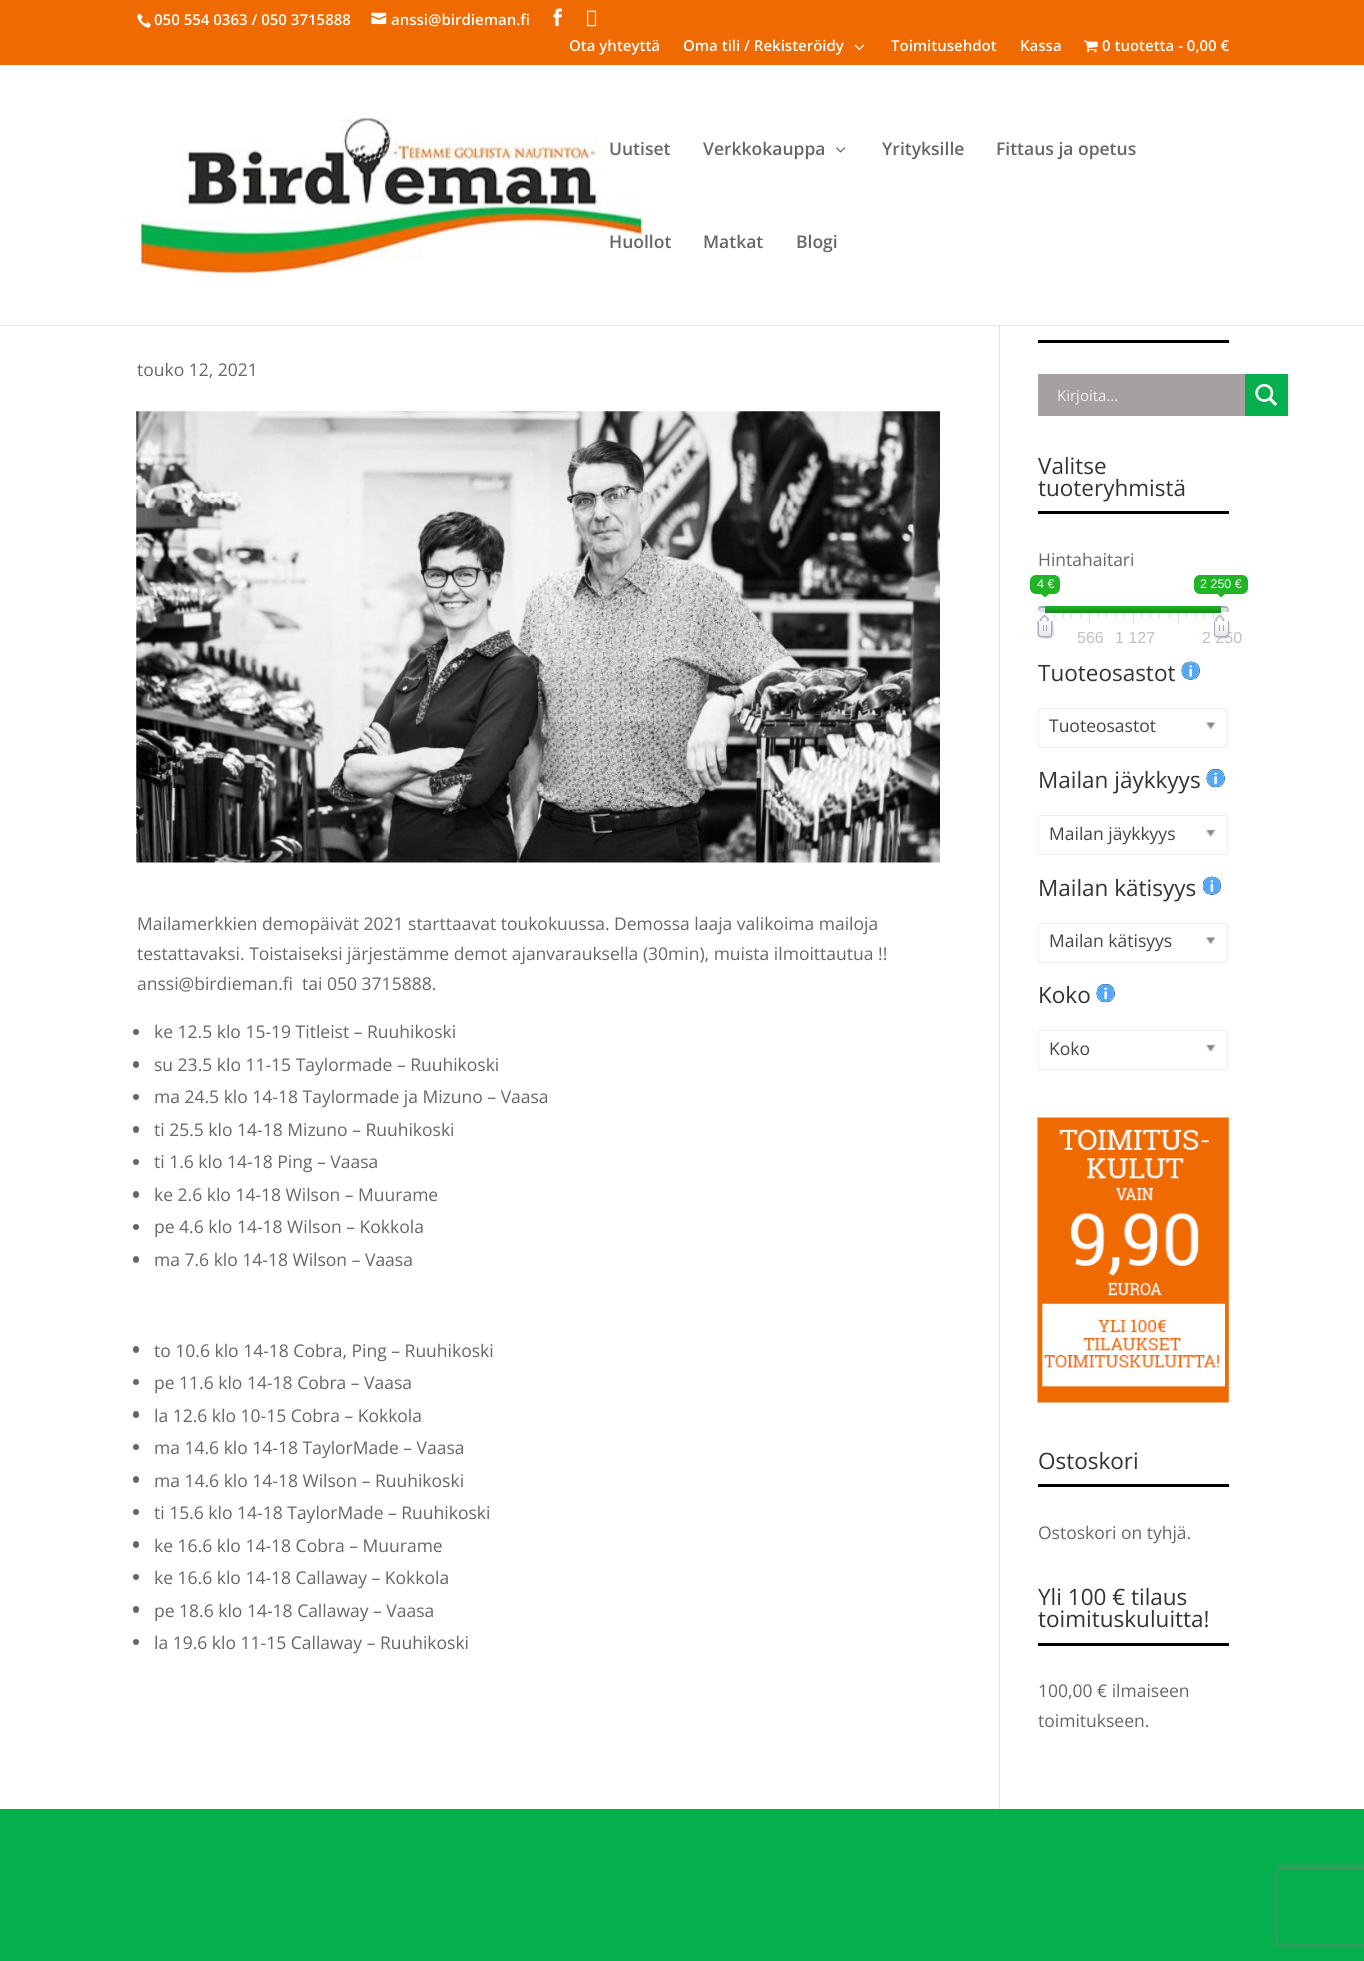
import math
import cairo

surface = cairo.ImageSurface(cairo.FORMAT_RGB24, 1364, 1961)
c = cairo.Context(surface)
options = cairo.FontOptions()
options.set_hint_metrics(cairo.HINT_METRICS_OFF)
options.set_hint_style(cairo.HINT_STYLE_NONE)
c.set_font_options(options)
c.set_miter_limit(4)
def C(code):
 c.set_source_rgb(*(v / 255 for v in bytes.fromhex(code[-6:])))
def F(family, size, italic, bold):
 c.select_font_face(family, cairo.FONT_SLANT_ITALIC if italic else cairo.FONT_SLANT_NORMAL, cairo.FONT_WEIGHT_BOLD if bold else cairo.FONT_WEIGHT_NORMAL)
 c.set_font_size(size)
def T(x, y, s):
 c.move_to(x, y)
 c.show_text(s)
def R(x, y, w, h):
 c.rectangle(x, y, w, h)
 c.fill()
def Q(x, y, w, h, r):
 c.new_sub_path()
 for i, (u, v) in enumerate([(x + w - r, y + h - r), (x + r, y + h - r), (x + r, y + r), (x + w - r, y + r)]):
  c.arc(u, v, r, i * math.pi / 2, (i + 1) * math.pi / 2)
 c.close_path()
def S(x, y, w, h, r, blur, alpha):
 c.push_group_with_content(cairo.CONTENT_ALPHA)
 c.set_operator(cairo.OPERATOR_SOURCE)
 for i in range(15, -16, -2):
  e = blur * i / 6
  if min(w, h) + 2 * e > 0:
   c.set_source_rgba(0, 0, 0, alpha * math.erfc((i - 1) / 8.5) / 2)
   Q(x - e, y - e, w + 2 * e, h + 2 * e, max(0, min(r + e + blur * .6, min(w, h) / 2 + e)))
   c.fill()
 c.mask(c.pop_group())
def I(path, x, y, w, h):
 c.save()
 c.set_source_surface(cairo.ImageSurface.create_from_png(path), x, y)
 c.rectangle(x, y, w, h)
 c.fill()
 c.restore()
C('ef6a01')
c.paint()
I('1.png',136,14,15,14)
F('Open Sans SemiBold',15,0,0)
C('ffffff')
T(154,25,'050 554 0363 / 050 3715888')
I('2.png',371,12,16,13)
T(391,25,'anssi@birdieman.fi')
I('3.png',553,8,9,19)
I('4.png',587,10,10,17)
T(569,51,'Ota yhteyttä')
T(683,51,'Oma tili / Rekisteröidy')
I('5.png',854,44,10,6)
T(891,51,'Toimitusehdot')
T(1020,51,'Kassa')
I('6.png',1083,40,15,13)
T(1102,51,'0 tuotetta - 0,00 €')
R(0,65,1364,1744)
C('e2e2e2')
R(999,325,1,1484)
c.set_source_rgba(0,0,0,0.1)
R(0,325,1364,1)
I('7.png',141,118,501,155)
F('Open Sans SemiBold',17.5,0,0)
C('666666')
T(609,155,'Uutiset')
T(703,155,'Verkkokauppa')
I('8.png',836,147,10,6)
T(882,155,'Yrityksille')
T(996,155,'Fittaus ja opetus')
T(609,248,'Huollot')
T(703,248,'Matkat')
T(796,248,'Blogi')
F('Open Sans',17.5,0,0)
T(137,376,'touko 12, 2021')
I('9.png',136,411,804,452)
T(137,930,'Mailamerkkien demopäivät 2021 starttaavat toukokuussa. Demossa laaja valikoima mailoja')
T(137,960,'testattavaksi. Toistaiseksi järjestämme demot ajanvarauksella (30min), muista ilmoittautua !!')
T(137,990,'anssi@birdieman.fi  tai 050 3715888.')
c.new_path()
c.arc(136,1032,3,0,2 * math.pi)
c.fill()
T(154,1038,'ke 12.5 klo 15-19 Titleist – Ruuhikoski')
Q(133,1061,6,7,3)
c.fill()
T(154,1071,'su 23.5 klo 11-15 Taylormade – Ruuhikoski')
c.new_path()
c.arc(136,1097,3,0,2 * math.pi)
c.fill()
T(154,1103,'ma 24.5 klo 14-18 Taylormade ja Mizuno – Vaasa')
Q(133,1126,6,7,3)
c.fill()
T(154,1136,'ti 25.5 klo 14-18 Mizuno – Ruuhikoski')
c.new_path()
c.arc(136,1162,3,0,2 * math.pi)
c.fill()
T(154,1168,'ti 1.6 klo 14-18 Ping – Vaasa')
Q(133,1191,6,7,3)
c.fill()
T(154,1201,'ke 2.6 klo 14-18 Wilson – Muurame')
c.new_path()
c.arc(136,1227,3,0,2 * math.pi)
c.fill()
T(154,1233,'pe 4.6 klo 14-18 Wilson – Kokkola')
Q(133,1256,6,7,3)
c.fill()
T(154,1266,'ma 7.6 klo 14-18 Wilson – Vaasa')
Q(133,1346,6,7,3)
c.fill()
T(154,1357,'to 10.6 klo 14-18 Cobra, Ping – Ruuhikoski')
c.new_path()
c.arc(136,1382,3,0,2 * math.pi)
c.fill()
T(154,1389,'pe 11.6 klo 14-18 Cobra – Vaasa')
Q(133,1411,6,7,3)
c.fill()
T(154,1422,'la 12.6 klo 10-15 Cobra – Kokkola')
c.new_path()
c.arc(136,1447,3,0,2 * math.pi)
c.fill()
T(154,1454,'ma 14.6 klo 14-18 TaylorMade – Vaasa')
Q(133,1476,6,7,3)
c.fill()
T(154,1487,'ma 14.6 klo 14-18 Wilson – Ruuhikoski')
c.new_path()
c.arc(136,1512,3,0,2 * math.pi)
c.fill()
T(154,1519,'ti 15.6 klo 14-18 TaylorMade – Ruuhikoski')
Q(133,1541,6,7,3)
c.fill()
T(154,1552,'ke 16.6 klo 14-18 Cobra – Muurame')
c.new_path()
c.arc(136,1577,3,0,2 * math.pi)
c.fill()
T(154,1584,'ke 16.6 klo 14-18 Callaway – Kokkola')
Q(133,1606,6,7,3)
c.fill()
T(154,1617,'pe 18.6 klo 14-18 Callaway – Vaasa')
c.new_path()
c.arc(136,1642,3,0,2 * math.pi)
c.fill()
T(154,1649,'la 19.6 klo 11-15 Callaway – Ruuhikoski')
C('000000')
R(1038,340,191,3)
C('a6a0a0')
R(1038,374,207,42)
F('Open Sans',15,0,0)
C('f2f1f1')
T(1057,401,'Kirjoita...')
C('05af4e')
R(1245,374,43,42)
I('10.png',1255,383,23,23)
C('000000')
R(1038,511,191,3)
F('Open Sans',22.5,0,0)
C('333333')
T(1038,474,'Valitse')
T(1038,496,'tuoteryhmistä')
F('Open Sans',17.5,0,0)
C('666666')
T(1038,566,'Hintahaitari')
C('20b426')
Q(1030,575,30,19,6)
c.fill()
F('Liberation Sans',12.5,0,0)
C('ffffff')
T(1037,588,'4 €')
C('20b426')
c.new_path()
c.move_to(1041,594)
c.line_to(1049,594)
c.line_to(1045,597.5)
c.close_path()
c.fill()
Q(1194,575,54,19,6)
c.fill()
C('ffffff')
T(1200,588,'2 250 €')
C('20b426')
c.new_path()
c.move_to(1217.5,594)
c.line_to(1225,594)
c.line_to(1221,597.5)
c.close_path()
c.fill()
gradient = cairo.LinearGradient(1133,608,1133,613)
gradient.add_color_stop_rgba(0,0.878,0.894,0.918,1)
gradient.add_color_stop_rgba(1,0.82,0.839,0.878,1)
c.set_source(gradient)
c.new_path()
c.move_to(1041,608)
c.line_to(1226,608)
c.line_to(1227,608)
c.curve_to(1228,609,1227,612,1226,612)
c.line_to(1041,612)
c.curve_to(1038,612,1038,608,1041,608)
c.close_path()
c.fill()
C('a3adc1')
c.set_fill_rule(cairo.FILL_RULE_EVEN_ODD)
c.new_path()
c.move_to(1041,606)
c.line_to(1226,606)
c.curve_to(1228,606,1229,609,1229,611)
c.curve_to(1228,612,1227,612,1226,612)
c.line_to(1041,612)
c.curve_to(1037,612,1037,606,1041,606)
c.close_path()
c.move_to(1041,608)
c.line_to(1226,608)
c.line_to(1227,608)
c.curve_to(1228,609,1227,612,1226,612)
c.line_to(1041,612)
c.curve_to(1038,612,1038,608,1041,608)
c.close_path()
c.fill()
gradient = cairo.LinearGradient(1133,606,1133,613)
gradient.add_color_stop_rgba(0,0.125,0.706,0.149,1)
gradient.add_color_stop_rgba(1,0.094,0.537,0.114,1)
c.set_source(gradient)
R(1045,606,176,7)
C('dedede')
R(1045,613,1,10)
C('000000')
S(1039,623,15,16,4,.5,.1)
C('a3adc1')
c.new_path()
c.move_to(1037.5,621)
c.line_to(1052.5,621)
c.line_to(1052.5,631.5)
c.curve_to(1052.5,638.5,1049.5,637.5,1044,637.5)
c.curve_to(1041,637.5,1037.5,637.5,1037.5,634)
c.close_path()
c.move_to(1039,621)
c.line_to(1051,621)
c.line_to(1051,634)
c.curve_to(1051,635,1050,636,1049,636)
c.line_to(1041,636)
c.curve_to(1040,636,1039,635,1039,634)
c.close_path()
c.fill()
C('ffffff')
c.set_fill_rule(cairo.FILL_RULE_WINDING)
c.new_path()
c.move_to(1044.5,614.5)
c.line_to(1049.5,619.5)
c.line_to(1044.5,625)
c.line_to(1039,619.5)
c.close_path()
c.fill()
c.new_path()
c.move_to(1044.5,615.5)
c.line_to(1048.5,619.5)
c.line_to(1044.5,624)
c.line_to(1040,619.5)
c.close_path()
C('a3adc1')
c.set_line_width(1.3)
c.stroke()
gradient = cairo.LinearGradient(1045,621,1045,636)
gradient.add_color_stop_rgba(0,1,1,1,1)
gradient.add_color_stop_rgba(1,0.914,0.902,0.902,1)
c.set_source(gradient)
c.new_path()
c.move_to(1039,621)
c.line_to(1051,621)
c.line_to(1051,632)
c.curve_to(1051,634,1049,636,1047,636)
c.line_to(1043,636)
c.curve_to(1041,636,1039,634,1039,632)
c.close_path()
c.fill()
C('a3adc1')
R(1046,625,1,6)
R(1043,625,1,6)
C('dedede')
R(1221,613,1,10)
C('000000')
S(1215,623,15,16,4,.5,.1)
F('Liberation Sans',16,0,0)
C('c0c0c0')
T(1202,643,'2 250')
C('a3adc1')
c.set_fill_rule(cairo.FILL_RULE_EVEN_ODD)
c.new_path()
c.move_to(1214,621)
c.line_to(1229,621)
c.line_to(1229,631.5)
c.curve_to(1229,638.5,1225.5,637.5,1220,637.5)
c.curve_to(1217.5,637.5,1214,637.5,1214,634)
c.close_path()
c.move_to(1215,621)
c.line_to(1227.5,621)
c.line_to(1227.5,634)
c.curve_to(1227.5,635,1226.5,636,1225,636)
c.line_to(1217.5,636)
c.curve_to(1216,636,1215,635,1215,634)
c.close_path()
c.fill()
C('ffffff')
c.set_fill_rule(cairo.FILL_RULE_WINDING)
c.new_path()
c.move_to(1219.5,614.5)
c.line_to(1225,619.5)
c.line_to(1219.5,625)
c.line_to(1214.5,619.5)
c.close_path()
c.fill()
c.new_path()
c.move_to(1219.5,615.5)
c.line_to(1224,619.5)
c.line_to(1219.5,624)
c.line_to(1215.5,619.5)
c.close_path()
C('a3adc1')
c.stroke()
gradient = cairo.LinearGradient(1221,621,1221,636)
gradient.add_color_stop_rgba(0,1,1,1,1)
gradient.add_color_stop_rgba(1,0.914,0.902,0.902,1)
c.set_source(gradient)
c.new_path()
c.move_to(1215,621)
c.line_to(1228,621)
c.line_to(1228,632)
c.curve_to(1228,634,1226,636,1224,636)
c.line_to(1219,636)
c.curve_to(1217,636,1215,634,1215,632)
c.close_path()
c.fill()
C('a3adc1')
R(1223,625,1,6)
R(1219,625,1,6)
C('dedede')
R(1054,613,1,5)
R(1063,613,1,5)
R(1071,613,1,5)
R(1080,613,1,5)
R(1089,613,1,10)
R(1098,613,1,5)
R(1106,613,1,5)
R(1115,613,1,5)
R(1124,613,1,5)
R(1133,613,1,10)
R(1141,613,1,5)
R(1150,613,1,5)
R(1159,613,1,5)
R(1169,613,1,5)
R(1178,613,1,10)
R(1186,613,1,5)
R(1195,613,1,5)
R(1204,613,1,5)
R(1213,613,1,5)
C('c0c0c0')
T(1077,643,'566')
T(1115,643,'1 127')
F('Open Sans',22.5,0,0)
C('333333')
T(1038,681,'Tuoteosastot')
I('11.png',1181,661,19,19)
Q(1038.5,708.5,189,39,2)
C('eeeeee')
c.set_line_width(1)
c.stroke()
F('Open Sans',17.5,0,0)
C('444444')
T(1049,732,'Tuoteosastot')
I('12.png',1206,722,10,8)
F('Open Sans',22.5,0,0)
C('333333')
T(1038,788,'Mailan jäykkyys')
I('13.png',1206,769,19,19)
Q(1038.5,815.5,189,39,2)
C('eeeeee')
c.stroke()
F('Open Sans',17.5,0,0)
C('444444')
T(1049,840,'Mailan jäykkyys')
I('14.png',1206,829,10,8)
F('Open Sans',22.5,0,0)
C('333333')
T(1038,896,'Mailan kätisyys')
I('15.png',1203,876,18,19)
Q(1038.5,923.5,189,39,2)
C('eeeeee')
c.stroke()
F('Open Sans',17.5,0,0)
C('444444')
T(1049,947,'Mailan kätisyys')
I('12.png',1206,937,10,8)
F('Open Sans',22.5,0,0)
C('333333')
T(1038,1003,'Koko')
I('13.png',1096,984,19,19)
Q(1038.5,1030.5,189,39,2)
C('eeeeee')
c.stroke()
F('Open Sans',17.5,0,0)
C('444444')
T(1049,1055,'Koko')
I('14.png',1206,1044,10,8)
I('16.png',1037,1117,192,286)
C('000000')
R(1038,1484,191,3)
F('Open Sans',22.5,0,0)
C('333333')
T(1038,1469,'Ostoskori')
F('Open Sans',17.5,0,0)
C('666666')
T(1038,1539,'Ostoskori on tyhjä.')
C('000000')
R(1038,1643,191,3)
F('Open Sans',22.5,0,0)
C('333333')
T(1038,1605,'Yli 100 € tilaus')
T(1038,1627,'toimituskuluitta!')
F('Open Sans',17.5,0,0)
C('666666')
T(1038,1697,'100,00 € ilmaiseen')
T(1038,1727,'toimitukseen.')
C('05af4e')
R(0,1809,1364,152)
c.save()
c.set_fill_rule(cairo.FILL_RULE_EVEN_ODD)
c.new_path()
c.move_to(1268,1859)
c.line_to(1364,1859)
c.line_to(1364,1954)
c.line_to(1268,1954)
c.close_path()
c.move_to(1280.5,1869)
c.line_to(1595.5,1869)
c.curve_to(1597,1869,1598,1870,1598,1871.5)
c.line_to(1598,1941.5)
c.curve_to(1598,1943,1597,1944,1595.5,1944)
c.line_to(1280.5,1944)
c.curve_to(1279,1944,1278,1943,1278,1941.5)
c.line_to(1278,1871.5)
c.curve_to(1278,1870,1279,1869,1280.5,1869)
c.close_path()
c.clip()
C('808080')
S(1278,1869,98,75,2.5,3,1)
c.restore()
surface.write_to_png('o.png')
